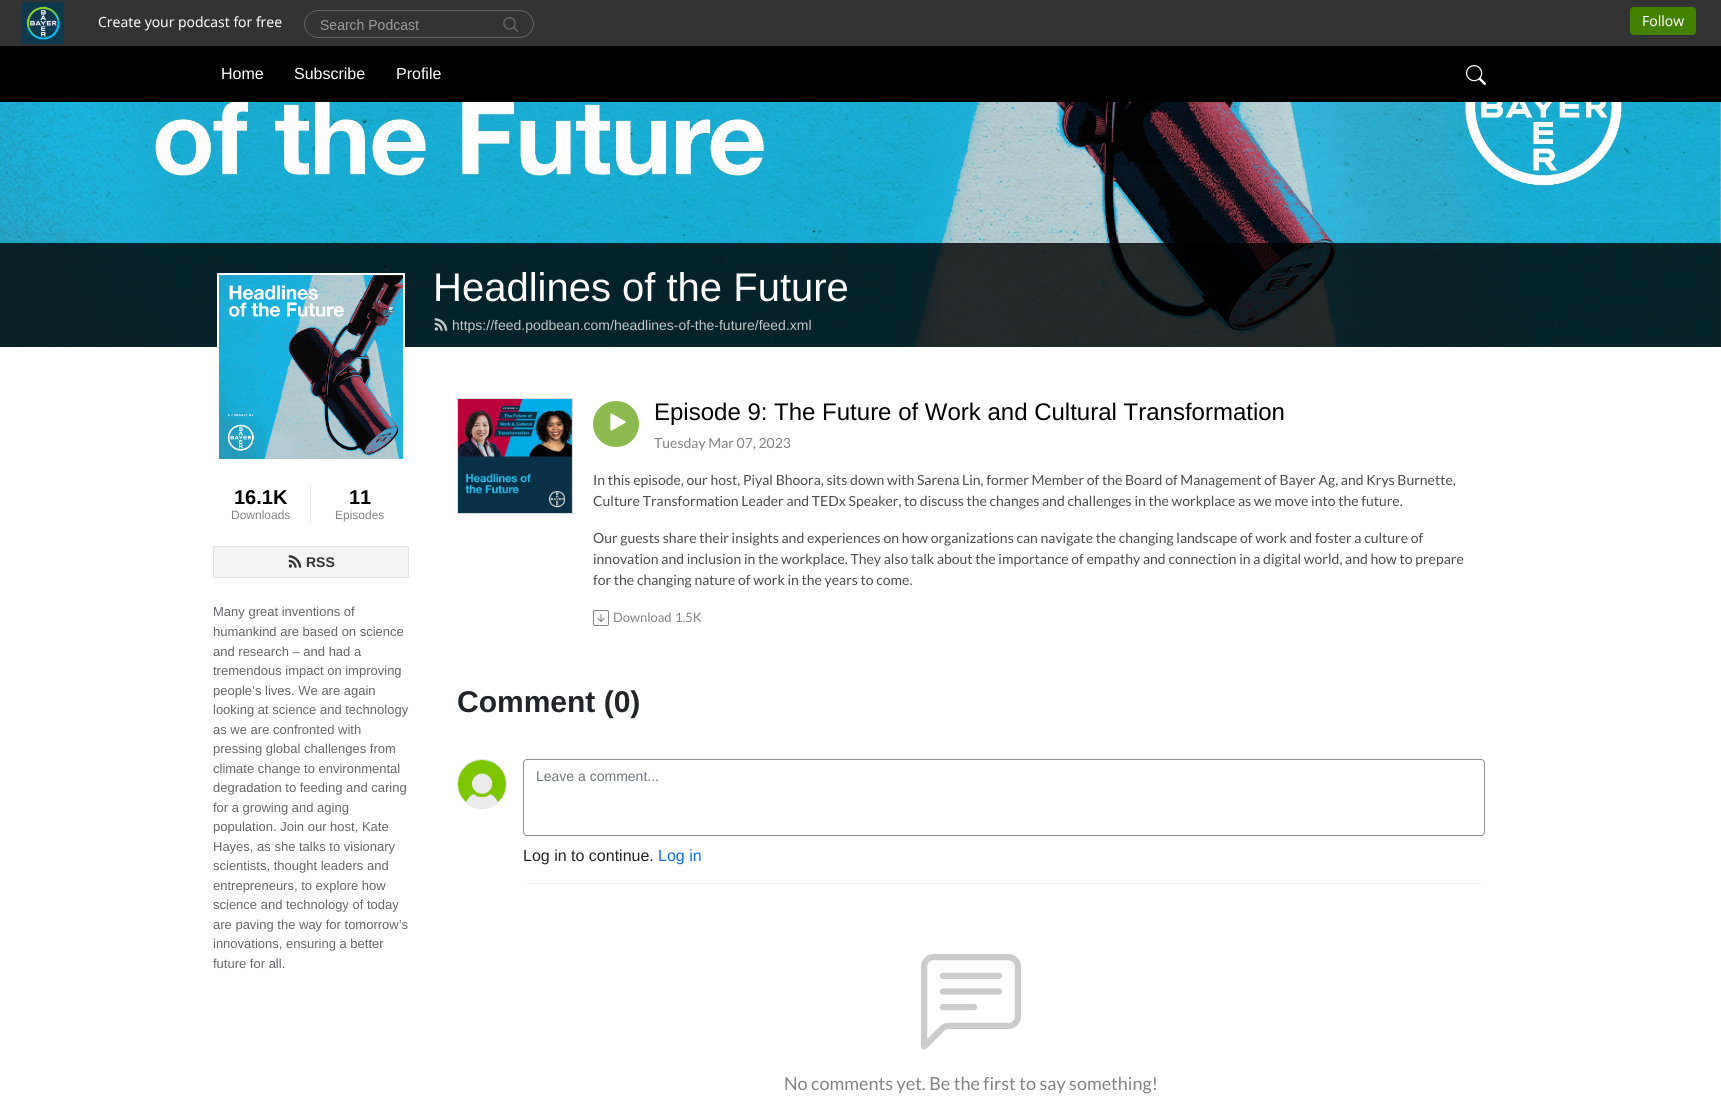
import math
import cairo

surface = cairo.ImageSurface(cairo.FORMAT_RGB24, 1721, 1110)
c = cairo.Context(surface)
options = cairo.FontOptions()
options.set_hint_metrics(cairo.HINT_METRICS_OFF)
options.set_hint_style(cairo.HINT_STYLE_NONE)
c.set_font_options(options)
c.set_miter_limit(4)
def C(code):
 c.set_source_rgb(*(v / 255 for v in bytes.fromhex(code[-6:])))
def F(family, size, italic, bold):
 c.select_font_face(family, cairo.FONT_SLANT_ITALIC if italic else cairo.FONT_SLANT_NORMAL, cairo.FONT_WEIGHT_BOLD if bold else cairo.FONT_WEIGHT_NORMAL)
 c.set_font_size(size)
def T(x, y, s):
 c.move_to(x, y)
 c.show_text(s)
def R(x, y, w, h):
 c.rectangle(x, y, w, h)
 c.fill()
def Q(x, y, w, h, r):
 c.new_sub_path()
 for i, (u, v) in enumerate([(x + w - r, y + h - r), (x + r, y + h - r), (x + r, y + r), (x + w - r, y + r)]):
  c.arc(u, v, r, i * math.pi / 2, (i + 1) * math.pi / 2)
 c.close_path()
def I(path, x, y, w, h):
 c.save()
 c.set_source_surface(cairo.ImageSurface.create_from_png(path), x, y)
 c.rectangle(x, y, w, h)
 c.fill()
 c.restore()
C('ffffff')
c.paint()
C('333333')
R(0,0,1721,46)
I('1.png',22,2,1674,42)
C('000000')
R(0,46,1721,56)
F('Liberation Sans',16,0,0)
C('ffffff')
T(221,79,'Home')
T(294,79,'Subscribe')
T(396,79,'Profile')
I('2.png',1466,65,20,20)
I('3.png',0,102,1721,245)
c.set_source_rgba(0,0,0,0.8)
R(0,243,1721,104)
F('Liberation Sans',40,0,0)
C('ffffff')
T(433,301,'Headlines of the Future')
I('4.png',434,318,14,13)
F('Liberation Sans',14,0,0)
C('c0c8ca')
T(452,330,'https://feed.podbean.com/headlines-of-the-future/feed.xml')
c.rectangle(218,274,186,186)
C('ffffff')
c.stroke()
I('5.png',219,275,184,184)
F('Liberation Sans',20,0,1)
C('000000')
T(234,504,'16.1K')
F('Liberation Sans',12,0,0)
C('838383')
T(231,519,'Downloads')
C('e6e6e6')
R(310,485,1,37)
F('Liberation Sans',20,0,1)
C('000000')
T(349,504,'11')
F('Liberation Sans',12,0,0)
C('838383')
T(335,519,'Episodes')
C('f4f4f4')
c.rectangle(213.5,546.5,195,31)
c.fill_preserve()
C('e2e2e2')
c.set_line_width(1)
c.stroke()
I('6.png',288,555,14,13)
F('Liberation Sans',14,0,1)
C('333333')
T(306,567,'RSS')
F('Liberation Sans',13,0,0)
C('646669')
T(213,616,'Many great inventions of')
T(213,636,'humankind are based on science')
T(213,656,'and research – and had a')
T(213,675,'tremendous impact on improving')
T(213,695,'people’s lives. We are again')
T(213,714,'looking at science and technology')
T(213,734,'as we are confronted with')
T(213,753,'pressing global challenges from')
T(213,773,'climate change to environmental')
T(213,792,'degradation to feeding and caring')
T(213,812,'for a growing and aging')
T(213,831,'population. Join our host, Kate')
T(213,851,'Hayes, as she talks to visionary')
T(213,870,'scientists, thought leaders and')
T(213,890,'entrepreneurs, to explore how')
T(213,909,'science and technology of today')
T(213,929,'are paving the way for tomorrow’s')
T(213,948,'innovations, ensuring a better')
T(213,968,'future for all.')
c.rectangle(457.5,398.5,115,115)
C('dadada')
c.stroke()
I('7.png',458,399,114,114)
C('8bbb4e')
c.arc(616,424,23,0,2 * math.pi)
c.fill()
I('8.png',610,413,16,18)
F('Liberation Sans',24,0,0)
C('000000')
T(654,420,'Episode 9: The Future of Work and Cultural Transformation')
F('Lato',14,0,0)
C('838383')
T(654,448,'Tuesday Mar 07, 2023')
C('4c4c4c')
T(593,485,'In this episode, our host, Piyal Bhoora, sits down with Sarena Lin, former Member of the Board of Management of Bayer Ag, and Krys Burnette,')
T(593,506,'Culture Transformation Leader and TEDx Speaker, to discuss the changes and challenges in the workplace as we move into the future.')
T(593,543,'Our guests share their insights and experiences on how organizations can navigate the changing landscape of work and foster a culture of')
T(593,564,'innovation and inclusion in the workplace. They also talk about the importance of empathy and connection in a digital world, and how to prepare')
T(593,585,'for the changing nature of work in the years to come.')
I('9.png',593,610,16,16)
F('Lato',13,0,0)
C('838383')
T(613,622,'Download')
T(675,622,'1.5K')
F('Liberation Sans',30,0,1)
C('212529')
T(457,712,'Comment (0)')
c.new_path()
c.arc(482,784,24.5,0,2 * math.pi)
C('e3e3e3')
c.stroke()
I('10.png',458,760,48,48)
C('f5f5f5')
R(523,883,962,1)
Q(523.5,759.5,961,76,3.5)
C('909090')
c.stroke()
F('Liberation Sans',14,0,0)
C('6c757d')
T(536,781,'Leave a comment...')
F('Liberation Sans',16,0,0)
C('212529')
T(523,861,'Log in to continue.')
C('0d6efd')
T(658,861,'Log in')
I('11.png',921,954,100,96)
F('Lato',18,0,0)
C('838383')
T(784,1090,'No comments yet. Be the first to say something!')
surface.write_to_png('o.png')
